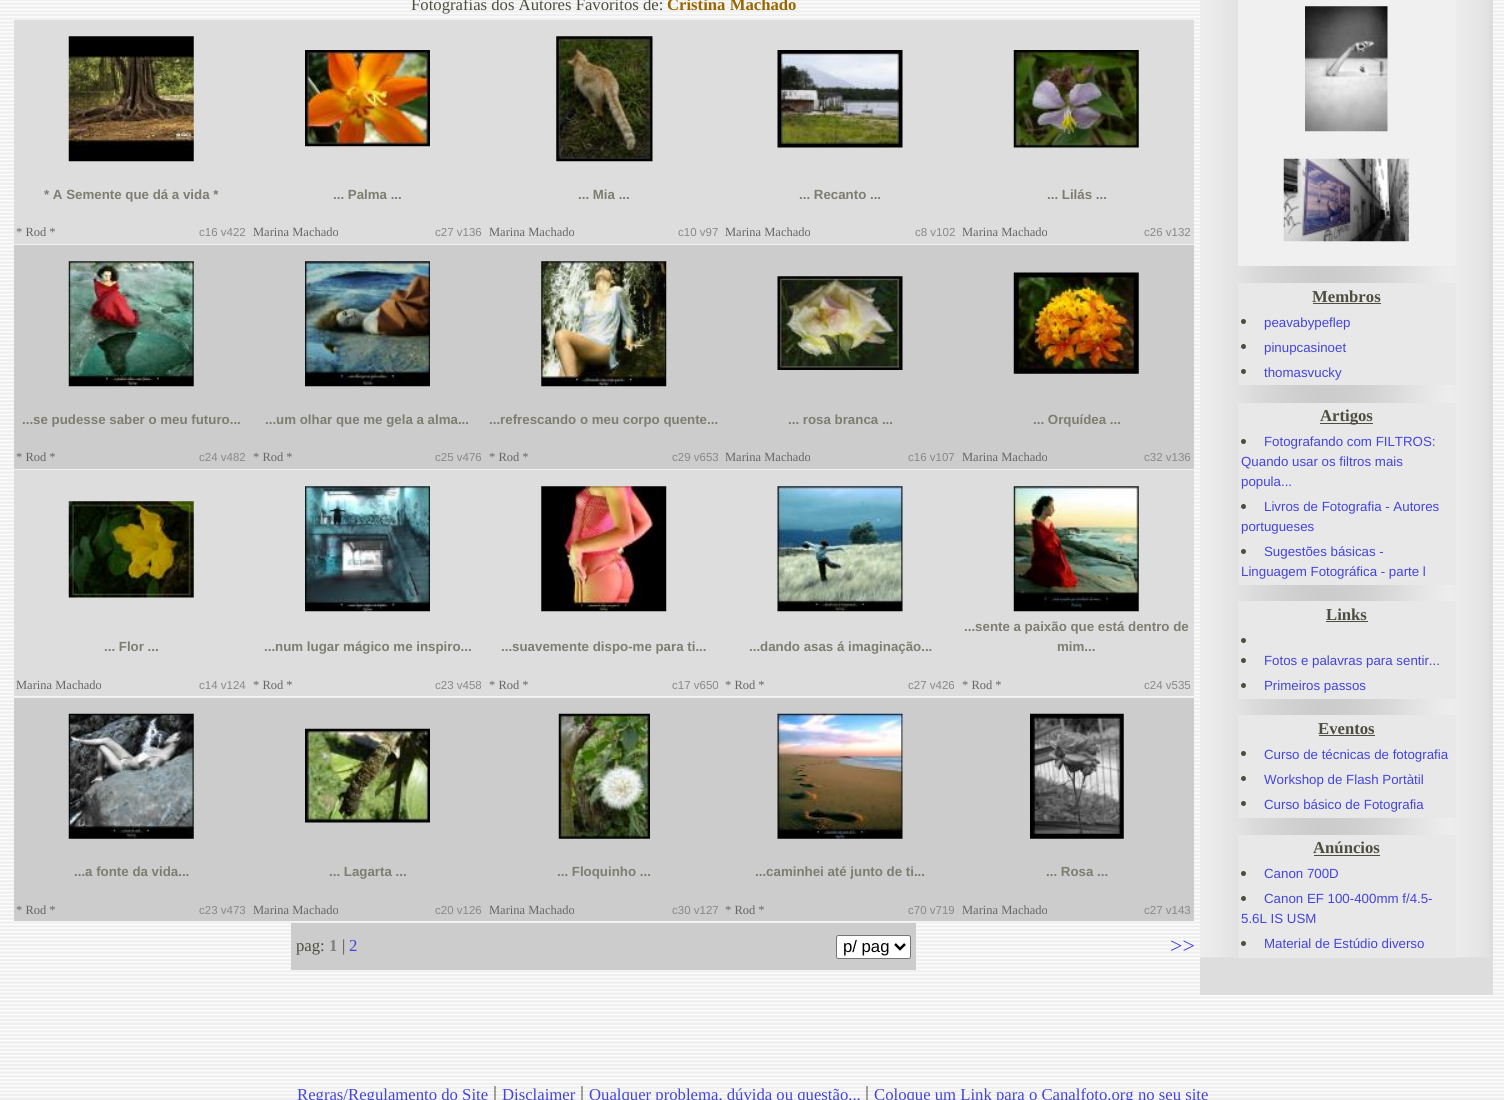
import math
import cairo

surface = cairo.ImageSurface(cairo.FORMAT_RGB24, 1504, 1100)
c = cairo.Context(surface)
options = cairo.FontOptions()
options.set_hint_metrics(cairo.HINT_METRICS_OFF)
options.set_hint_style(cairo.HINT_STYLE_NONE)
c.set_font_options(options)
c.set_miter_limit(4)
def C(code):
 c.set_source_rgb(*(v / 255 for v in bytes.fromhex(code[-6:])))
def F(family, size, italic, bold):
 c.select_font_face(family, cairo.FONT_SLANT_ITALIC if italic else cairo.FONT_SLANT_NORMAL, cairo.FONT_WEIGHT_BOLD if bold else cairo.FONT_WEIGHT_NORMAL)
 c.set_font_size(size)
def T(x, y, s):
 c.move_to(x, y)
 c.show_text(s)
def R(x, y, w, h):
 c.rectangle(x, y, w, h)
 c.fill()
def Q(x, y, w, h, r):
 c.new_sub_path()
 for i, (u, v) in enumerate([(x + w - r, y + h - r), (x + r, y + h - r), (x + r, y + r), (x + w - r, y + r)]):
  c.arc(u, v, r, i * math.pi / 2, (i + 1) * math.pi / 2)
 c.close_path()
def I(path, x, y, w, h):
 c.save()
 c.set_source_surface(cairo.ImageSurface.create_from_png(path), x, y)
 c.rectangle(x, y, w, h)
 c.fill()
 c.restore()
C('ffffff')
c.paint()
I('1.png',0,0,1504,1100)
F('Liberation Serif',16.7,0,0)
C('4d4d41')
T(411,10,'Fotografias dos Autores Favoritos de:')
F('Liberation Serif',16.7,0,1)
C('996600')
T(667,10,'Cristina Machado')
C('dddddd')
R(14,20,1180,224)
I('2.png',68,36,126,126)
F('Liberation Sans',13.3,0,1)
C('7d7d71')
T(44,199,'* A Semente que dá a vida *')
F('Liberation Serif',12.5,0,0)
C('666666')
T(16,236,'* Rod *')
F('Liberation Sans',11.5,0,0)
C('888888')
T(199,236,'c16 v422')
I('3.png',305,50,125,97)
F('Liberation Sans',13.3,0,1)
C('7d7d71')
T(333,199,'... Palma ...')
F('Liberation Serif',12.5,0,0)
C('666666')
T(253,236,'Marina Machado')
F('Liberation Sans',11.5,0,0)
C('888888')
T(435,236,'c27 v136')
I('4.png',556,36,97,126)
F('Liberation Sans',13.3,0,1)
C('7d7d71')
T(578,199,'... Mia ...')
F('Liberation Serif',12.5,0,0)
C('666666')
T(489,236,'Marina Machado')
F('Liberation Sans',11.5,0,0)
C('888888')
T(678,236,'c10 v97')
I('5.png',777,50,126,98)
F('Liberation Sans',13.3,0,1)
C('7d7d71')
T(799,199,'... Recanto ...')
F('Liberation Serif',12.5,0,0)
C('666666')
T(725,236,'Marina Machado')
F('Liberation Sans',11.5,0,0)
C('888888')
T(915,236,'c8 v102')
I('6.png',1013,50,126,98)
F('Liberation Sans',13.3,0,1)
C('7d7d71')
T(1047,199,'... Lilás ...')
F('Liberation Serif',12.5,0,0)
C('666666')
T(962,236,'Marina Machado')
F('Liberation Sans',11.5,0,0)
C('888888')
T(1144,236,'c26 v132')
C('cccccc')
R(14,245,1180,224)
I('7.png',68,261,126,126)
F('Liberation Sans',13.3,0,1)
C('7d7d71')
T(22,424,'...se pudesse saber o meu futuro...')
F('Liberation Serif',12.5,0,0)
C('666666')
T(16,461,'* Rod *')
F('Liberation Sans',11.5,0,0)
C('888888')
T(199,461,'c24 v482')
I('8.png',305,261,125,126)
F('Liberation Sans',13.3,0,1)
C('7d7d71')
T(265,424,'...um olhar que me gela a alma...')
F('Liberation Serif',12.5,0,0)
C('666666')
T(253,461,'* Rod *')
F('Liberation Sans',11.5,0,0)
C('888888')
T(435,461,'c25 v476')
I('9.png',541,261,126,126)
F('Liberation Sans',13.3,0,1)
C('7d7d71')
T(489,424,'...refrescando o meu corpo quente...')
F('Liberation Serif',12.5,0,0)
C('666666')
T(489,461,'* Rod *')
F('Liberation Sans',11.5,0,0)
C('888888')
T(672,461,'c29 v653')
I('10.png',777,276,126,94)
F('Liberation Sans',13.3,0,1)
C('7d7d71')
T(788,424,'... rosa branca ...')
F('Liberation Serif',12.5,0,0)
C('666666')
T(725,461,'Marina Machado')
F('Liberation Sans',11.5,0,0)
C('888888')
T(908,461,'c16 v107')
I('11.png',1013,272,126,102)
F('Liberation Sans',13.3,0,1)
C('7d7d71')
T(1033,424,'... Orquídea ...')
F('Liberation Serif',12.5,0,0)
C('666666')
T(962,461,'Marina Machado')
F('Liberation Sans',11.5,0,0)
C('888888')
T(1144,461,'c32 v136')
C('dddddd')
R(14,470,1180,226)
I('12.png',68,501,126,97)
F('Liberation Sans',13.3,0,1)
C('7d7d71')
T(104,651,'... Flor ...')
F('Liberation Serif',12.5,0,0)
C('666666')
T(16,689,'Marina Machado')
F('Liberation Sans',11.5,0,0)
C('888888')
T(199,689,'c14 v124')
I('13.png',305,486,125,126)
F('Liberation Sans',13.3,0,1)
C('7d7d71')
T(264,651,'...num lugar mágico me inspiro...')
F('Liberation Serif',12.5,0,0)
C('666666')
T(253,689,'* Rod *')
F('Liberation Sans',11.5,0,0)
C('888888')
T(435,689,'c23 v458')
I('14.png',541,486,126,126)
F('Liberation Sans',13.3,0,1)
C('7d7d71')
T(501,651,'...suavemente dispo-me para ti...')
F('Liberation Serif',12.5,0,0)
C('666666')
T(489,689,'* Rod *')
F('Liberation Sans',11.5,0,0)
C('888888')
T(672,689,'c17 v650')
I('15.png',777,486,126,126)
F('Liberation Sans',13.3,0,1)
C('7d7d71')
T(749,651,'...dando asas á imaginação...')
F('Liberation Serif',12.5,0,0)
C('666666')
T(725,689,'* Rod *')
F('Liberation Sans',11.5,0,0)
C('888888')
T(908,689,'c27 v426')
I('16.png',1013,486,126,126)
F('Liberation Sans',13.3,0,1)
C('7d7d71')
T(964,631,'...sente a paixão que está dentro de')
T(1057,651,'mim...')
F('Liberation Serif',12.5,0,0)
C('666666')
T(962,689,'* Rod *')
F('Liberation Sans',11.5,0,0)
C('888888')
T(1144,689,'c24 v535')
C('cccccc')
R(14,698,1180,223)
I('17.png',68,713,126,126)
F('Liberation Sans',13.3,0,1)
C('7d7d71')
T(74,876,'...a fonte da vida...')
F('Liberation Serif',12.5,0,0)
C('666666')
T(16,914,'* Rod *')
F('Liberation Sans',11.5,0,0)
C('888888')
T(199,914,'c23 v473')
I('18.png',305,728,125,95)
F('Liberation Sans',13.3,0,1)
C('7d7d71')
T(329,876,'... Lagarta ...')
F('Liberation Serif',12.5,0,0)
C('666666')
T(253,914,'Marina Machado')
F('Liberation Sans',11.5,0,0)
C('888888')
T(435,914,'c20 v126')
I('19.png',558,713,92,126)
F('Liberation Sans',13.3,0,1)
C('7d7d71')
T(557,876,'... Floquinho ...')
F('Liberation Serif',12.5,0,0)
C('666666')
T(489,914,'Marina Machado')
F('Liberation Sans',11.5,0,0)
C('888888')
T(672,914,'c30 v127')
I('20.png',777,713,126,126)
F('Liberation Sans',13.3,0,1)
C('7d7d71')
T(755,876,'...caminhei até junto de ti...')
F('Liberation Serif',12.5,0,0)
C('666666')
T(725,914,'* Rod *')
F('Liberation Sans',11.5,0,0)
C('888888')
T(908,914,'c70 v719')
I('21.png',1030,713,94,126)
F('Liberation Sans',13.3,0,1)
C('7d7d71')
T(1046,876,'... Rosa ...')
F('Liberation Serif',12.5,0,0)
C('666666')
T(962,914,'Marina Machado')
F('Liberation Sans',11.5,0,0)
C('888888')
T(1144,914,'c27 v143')
C('cccccc')
R(291,923,625,47)
F('Liberation Serif',16.7,0,0)
C('4d4d41')
T(296,951,'pag:')
F('Liberation Serif',16.7,0,1)
C('808080')
T(329,951,'1')
F('Liberation Serif',16.7,0,0)
C('4d4d41')
T(342,951,'|')
C('4444dd')
T(349,951,'2')
C('ffffff')
Q(836.5,935.5,74,23,2)
c.fill_preserve()
C('767676')
c.set_line_width(1)
c.stroke()
c.new_path()
c.move_to(895,944)
c.line_to(900,949)
c.line_to(905,944)
C('000000')
c.set_line_width(2.5)
c.stroke()
F('Liberation Sans',16.7,0,0)
T(843,952,'p/ pag')
F('Liberation Serif',22,0,0)
C('4444dd')
T(1170,953,'>>')
C('dddddd')
R(1200,0,293,995)
I('22.png',1200,0,289,958)
C('f0f0f0')
R(1238,0,218,266)
I('23.png',1305,6,83,126)
I('24.png',1283,158,126,84)
C('e8e8e8')
R(1238,283,218,102)
F('Liberation Serif',16.7,0,1)
C('4d4d41')
T(1312,302,'Membros')
R(1313,303,68,1)
c.new_path()
c.arc(1243.5,321.5,2.5,0,2 * math.pi)
c.fill()
F('Liberation Sans',13.3,0,0)
C('4444dd')
T(1264,327,'peavabypeflep')
C('4d4d41')
c.new_path()
c.arc(1243.5,346.5,2.5,0,2 * math.pi)
c.fill()
C('4444dd')
T(1264,352,'pinupcasinoet')
C('4d4d41')
c.new_path()
c.arc(1243.5,371.5,2.5,0,2 * math.pi)
c.fill()
C('4444dd')
T(1264,377,'thomasvucky')
C('e8e8e8')
R(1238,403,218,182)
C('4d4d41')
R(1320,423,53,1)
F('Liberation Serif',16.7,0,1)
T(1320,421,'Artigos')
c.new_path()
c.arc(1243.5,441.5,2.5,0,2 * math.pi)
c.fill()
F('Liberation Sans',13.3,0,0)
C('4444dd')
T(1264,446,'Fotografando com FILTROS:')
T(1241,466,'Quando usar os filtros mais')
T(1241,486,'popula...')
C('4d4d41')
c.new_path()
c.arc(1243.5,506.5,2.5,0,2 * math.pi)
c.fill()
C('4444dd')
T(1264,511,'Livros de Fotografia - Autores')
T(1241,531,'portugueses')
C('4d4d41')
c.new_path()
c.arc(1243.5,551.5,2.5,0,2 * math.pi)
c.fill()
C('4444dd')
T(1264,556,'Sugestões básicas -')
T(1241,576,'Linguagem Fotográfica - parte l')
C('e8e8e8')
R(1238,601,218,98)
F('Liberation Serif',16.7,0,1)
C('4d4d41')
T(1326,620,'Links')
R(1326,621,42,1)
c.new_path()
c.arc(1243.5,640.5,2.5,0,2 * math.pi)
c.fill()
c.arc(1243.5,660.5,2.5,0,2 * math.pi)
c.fill()
F('Liberation Sans',13.3,0,0)
C('4444dd')
T(1264,665,'Fotos e palavras para sentir...')
C('4d4d41')
c.new_path()
c.arc(1243.5,685.5,2.5,0,2 * math.pi)
c.fill()
C('4444dd')
T(1264,690,'Primeiros passos')
C('e8e8e8')
R(1238,715,218,103)
F('Liberation Serif',16.7,0,1)
C('4d4d41')
T(1318,734,'Eventos')
R(1319,735,56,1)
c.new_path()
c.arc(1243.5,753.5,2.5,0,2 * math.pi)
c.fill()
F('Liberation Sans',13.3,0,0)
C('4444dd')
T(1264,759,'Curso de técnicas de fotografia')
C('4d4d41')
c.new_path()
c.arc(1243.5,778.5,2.5,0,2 * math.pi)
c.fill()
C('4444dd')
T(1264,784,'Workshop de Flash Portàtil')
C('4d4d41')
c.new_path()
c.arc(1243.5,803.5,2.5,0,2 * math.pi)
c.fill()
C('4444dd')
T(1264,809,'Curso básico de Fotografia')
C('e8e8e8')
R(1238,835,218,123)
F('Liberation Serif',16.7,0,1)
C('4d4d41')
T(1313,853,'Anúncios')
R(1314,855,66,1)
c.new_path()
c.arc(1243.5,873.5,2.5,0,2 * math.pi)
c.fill()
F('Liberation Sans',13.3,0,0)
C('4444dd')
T(1264,878,'Canon 700D')
C('4d4d41')
c.new_path()
c.arc(1243.5,898.5,2.5,0,2 * math.pi)
c.fill()
C('4444dd')
T(1264,903,'Canon EF 100-400mm f/4.5-')
T(1241,923,'5.6L IS USM')
C('4d4d41')
c.new_path()
c.arc(1243.5,943.5,2.5,0,2 * math.pi)
c.fill()
C('4444dd')
T(1264,948,'Material de Estúdio diverso')
F('Liberation Serif',16.7,0,0)
T(297,1100,'Regras/Regulamento do Site')
F('Liberation Serif',20,0,0)
C('4d4d41')
T(493,1100,'|')
F('Liberation Serif',16.7,0,0)
C('4444dd')
T(502,1100,'Disclaimer')
F('Liberation Serif',20,0,0)
C('4d4d41')
T(580,1100,'|')
F('Liberation Serif',16.7,0,0)
C('4444dd')
T(589,1100,'Qualquer problema, dúvida ou questão...')
F('Liberation Serif',20,0,0)
C('4d4d41')
T(865,1100,'|')
F('Liberation Serif',16.7,0,0)
C('4444dd')
T(874,1100,'Coloque um Link para o Canalfoto.org no seu site')
surface.write_to_png('o.png')
